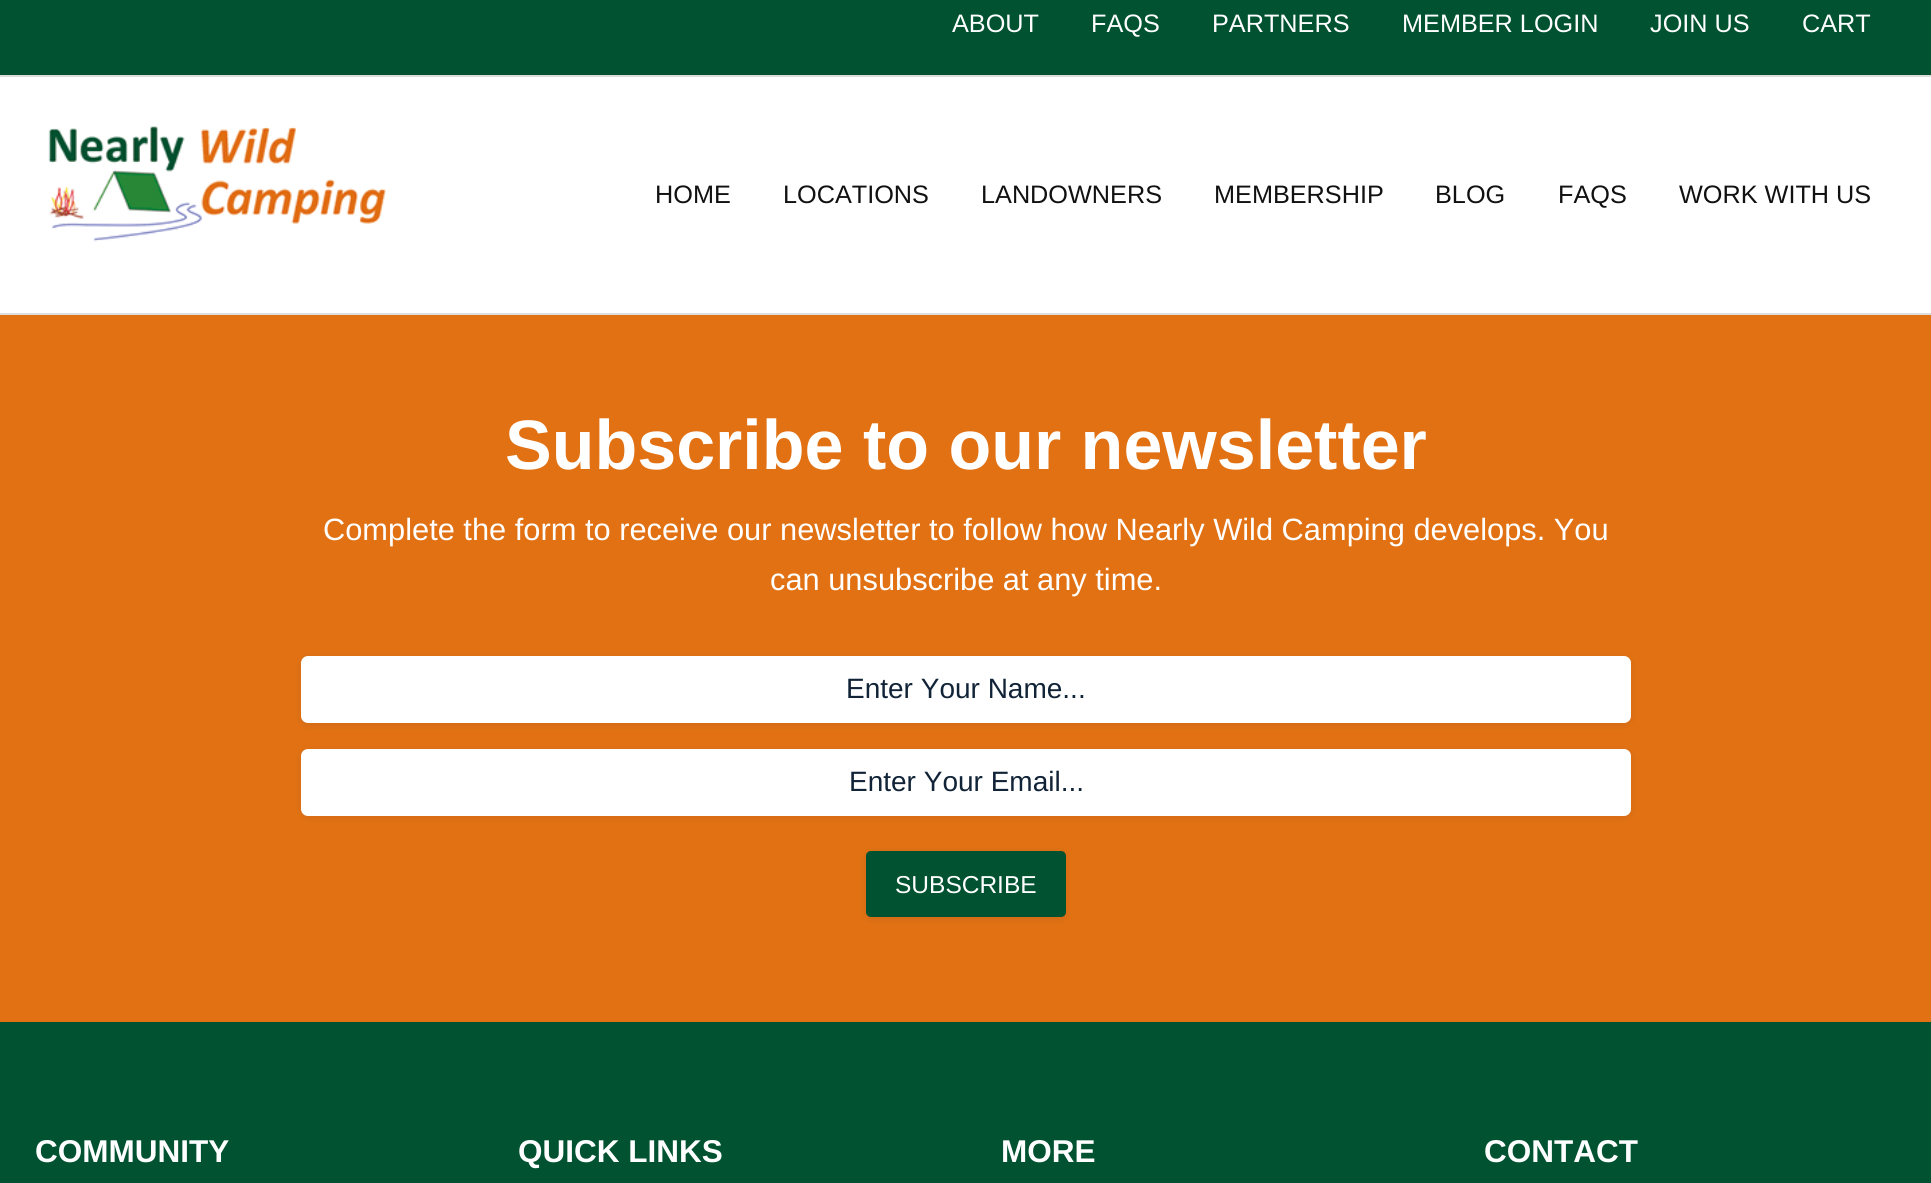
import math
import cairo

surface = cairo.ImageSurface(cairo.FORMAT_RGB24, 1931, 1183)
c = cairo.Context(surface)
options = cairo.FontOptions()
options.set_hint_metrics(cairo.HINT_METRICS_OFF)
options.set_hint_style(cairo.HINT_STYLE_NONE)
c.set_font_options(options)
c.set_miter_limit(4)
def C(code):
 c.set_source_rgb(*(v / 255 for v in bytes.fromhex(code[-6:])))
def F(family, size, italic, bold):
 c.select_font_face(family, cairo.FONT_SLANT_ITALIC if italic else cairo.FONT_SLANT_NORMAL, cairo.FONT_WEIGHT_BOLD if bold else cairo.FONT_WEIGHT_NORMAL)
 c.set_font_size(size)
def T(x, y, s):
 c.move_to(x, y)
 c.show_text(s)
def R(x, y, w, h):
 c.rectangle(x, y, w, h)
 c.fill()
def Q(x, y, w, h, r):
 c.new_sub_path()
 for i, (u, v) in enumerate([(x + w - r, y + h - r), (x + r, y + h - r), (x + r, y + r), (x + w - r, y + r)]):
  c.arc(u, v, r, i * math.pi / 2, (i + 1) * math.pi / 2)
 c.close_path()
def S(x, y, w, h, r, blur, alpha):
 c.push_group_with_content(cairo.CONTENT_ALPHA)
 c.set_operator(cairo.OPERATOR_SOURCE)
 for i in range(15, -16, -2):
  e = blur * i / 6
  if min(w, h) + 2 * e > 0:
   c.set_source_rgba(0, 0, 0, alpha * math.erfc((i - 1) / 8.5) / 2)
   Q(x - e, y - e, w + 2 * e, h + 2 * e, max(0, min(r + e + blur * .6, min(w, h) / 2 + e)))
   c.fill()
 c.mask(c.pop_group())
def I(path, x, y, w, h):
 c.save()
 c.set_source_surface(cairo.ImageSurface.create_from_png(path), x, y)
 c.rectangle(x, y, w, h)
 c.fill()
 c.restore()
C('ffffff')
c.paint()
C('dddddd')
R(0,313,1931,2)
C('005230')
R(0,0,1931,75)
C('dddddd')
R(0,75,1931,2)
F('Liberation Sans',25.25,0,0)
C('ffffff')
T(952,32,'ABOUT')
T(1091,32,'FAQS')
T(1212,32,'PARTNERS')
T(1402,32,'MEMBER LOGIN')
T(1650,32,'JOIN US')
T(1802,32,'CART')
I('1.png',48,126,338,116)
C('111111')
T(655,203,'HOME')
T(783,203,'LOCATIONS')
T(981,203,'LANDOWNERS')
T(1214,203,'MEMBERSHIP')
T(1435,203,'BLOG')
T(1558,203,'FAQS')
T(1679,203,'WORK WITH US')
C('e17113')
R(0,315,1931,707)
F('Liberation Sans',70,0,1)
C('ffffff')
T(505,469,'Subscribe to our newsletter')
F('Liberation Sans',30.8,0,0)
T(323,540,'Complete the form to receive our newsletter to follow how Nearly Wild Camping develops. You')
T(770,590,'can unsubscribe at any time.')
C('121961')
S(301,658,1330,67,7,3.5,.08)
C('ffffff')
Q(301,656,1330,67,7)
c.fill()
F('Liberation Sans',28,0,0)
C('112337')
T(846,698,'Enter Your Name...')
C('121961')
S(301,751,1330,66,7,3.5,.08)
C('ffffff')
Q(301,749,1330,67,7)
c.fill()
C('112337')
T(849,791,'Enter Your Email...')
C('121961')
S(866,852,200,67,5,3.5,.08)
C('005230')
Q(866,851,200,66,5)
c.fill()
F('Liberation Sans',24.5,0,0)
C('ffffff')
T(895,893,'SUBSCRIBE')
C('005230')
R(0,1022,1931,161)
F('Liberation Sans',31.5,0,1)
C('ffffff')
T(35,1162,'COMMUNITY')
T(518,1162,'QUICK LINKS')
T(1001,1162,'MORE')
T(1484,1162,'CONTACT')
surface.write_to_png('o.png')
